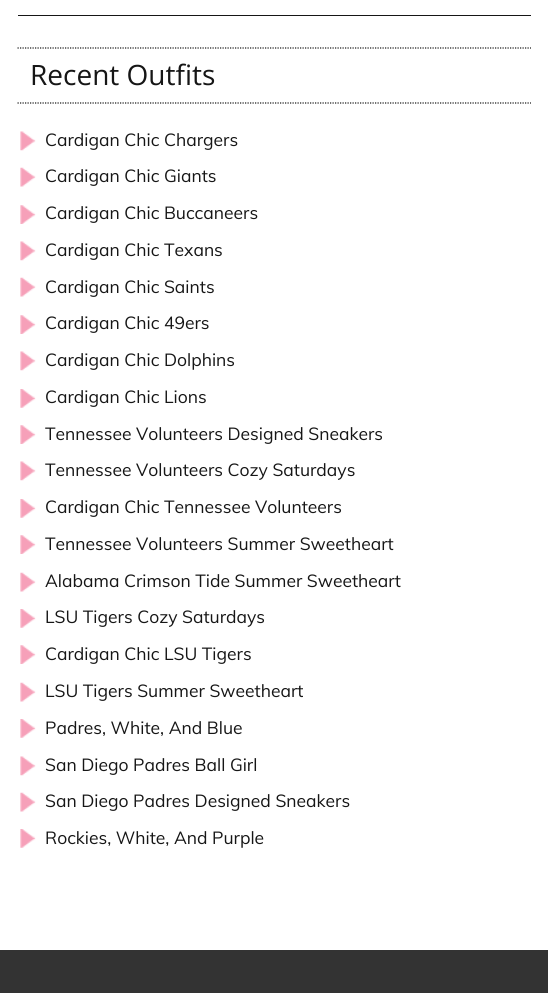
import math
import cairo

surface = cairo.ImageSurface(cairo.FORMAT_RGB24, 548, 993)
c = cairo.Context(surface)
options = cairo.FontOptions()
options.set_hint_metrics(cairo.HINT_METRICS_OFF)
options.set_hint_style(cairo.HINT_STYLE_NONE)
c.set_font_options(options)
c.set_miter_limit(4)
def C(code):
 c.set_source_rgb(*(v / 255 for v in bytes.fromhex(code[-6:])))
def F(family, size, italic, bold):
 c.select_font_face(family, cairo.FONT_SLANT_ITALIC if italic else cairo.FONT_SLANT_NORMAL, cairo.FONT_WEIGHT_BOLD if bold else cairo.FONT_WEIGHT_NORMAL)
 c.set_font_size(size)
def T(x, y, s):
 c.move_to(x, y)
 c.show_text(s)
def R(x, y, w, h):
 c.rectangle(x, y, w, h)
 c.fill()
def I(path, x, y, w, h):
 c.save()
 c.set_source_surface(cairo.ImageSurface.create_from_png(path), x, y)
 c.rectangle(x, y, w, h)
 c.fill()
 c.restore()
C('ffffff')
c.paint()
C('161616')
R(18,15,513,1)
c.new_path()
c.move_to(17.5,48)
c.line_to(531,48)
c.set_line_width(1.2)
c.set_dash([1.25,1.25])
c.stroke()
c.new_path()
c.move_to(17.5,103)
c.line_to(531,103)
c.stroke()
F('Open Sans',28,0,0)
T(30,85,'Recent Outfits')
I('1.png',20,131,16,20)
F('Muli',17.5,0,0)
T(45,146,'Cardigan Chic Chargers')
I('2.png',20,167,16,20)
T(45,182,'Cardigan Chic Giants')
I('3.png',20,205,16,19)
T(45,219,'Cardigan Chic Buccaneers')
I('1.png',20,241,16,20)
T(45,256,'Cardigan Chic Texans')
I('2.png',20,277,16,20)
T(45,293,'Cardigan Chic Saints')
I('3.png',20,315,16,19)
T(45,329,'Cardigan Chic 49ers')
I('4.png',20,351,16,20)
T(45,366,'Cardigan Chic Dolphins')
I('5.png',20,389,16,19)
T(45,403,'Cardigan Chic Lions')
I('3.png',20,425,16,19)
T(45,440,'Tennessee Volunteers Designed Sneakers')
I('1.png',20,461,16,20)
T(45,476,'Tennessee Volunteers Cozy Saturdays')
I('5.png',20,499,16,19)
T(45,513,'Cardigan Chic Tennessee Volunteers')
I('3.png',20,535,16,19)
T(45,550,'Tennessee Volunteers Summer Sweetheart')
I('2.png',20,572,16,20)
T(45,587,'Alabama Crimson Tide Summer Sweetheart')
I('5.png',20,609,16,19)
T(45,623,'LSU Tigers Cozy Saturdays')
I('6.png',20,645,16,19)
T(45,660,'Cardigan Chic LSU Tigers')
I('2.png',20,682,16,20)
T(45,697,'LSU Tigers Summer Sweetheart')
I('5.png',20,719,16,19)
T(45,734,'Padres, White, And Blue')
I('1.png',20,756,16,20)
T(45,771,'San Diego Padres Ball Girl')
I('2.png',20,792,16,20)
T(45,807,'San Diego Padres Designed Sneakers')
I('5.png',20,829,16,19)
T(45,844,'Rockies, White, And Purple')
C('333333')
R(0,950,548,43)
surface.write_to_png('o.png')
